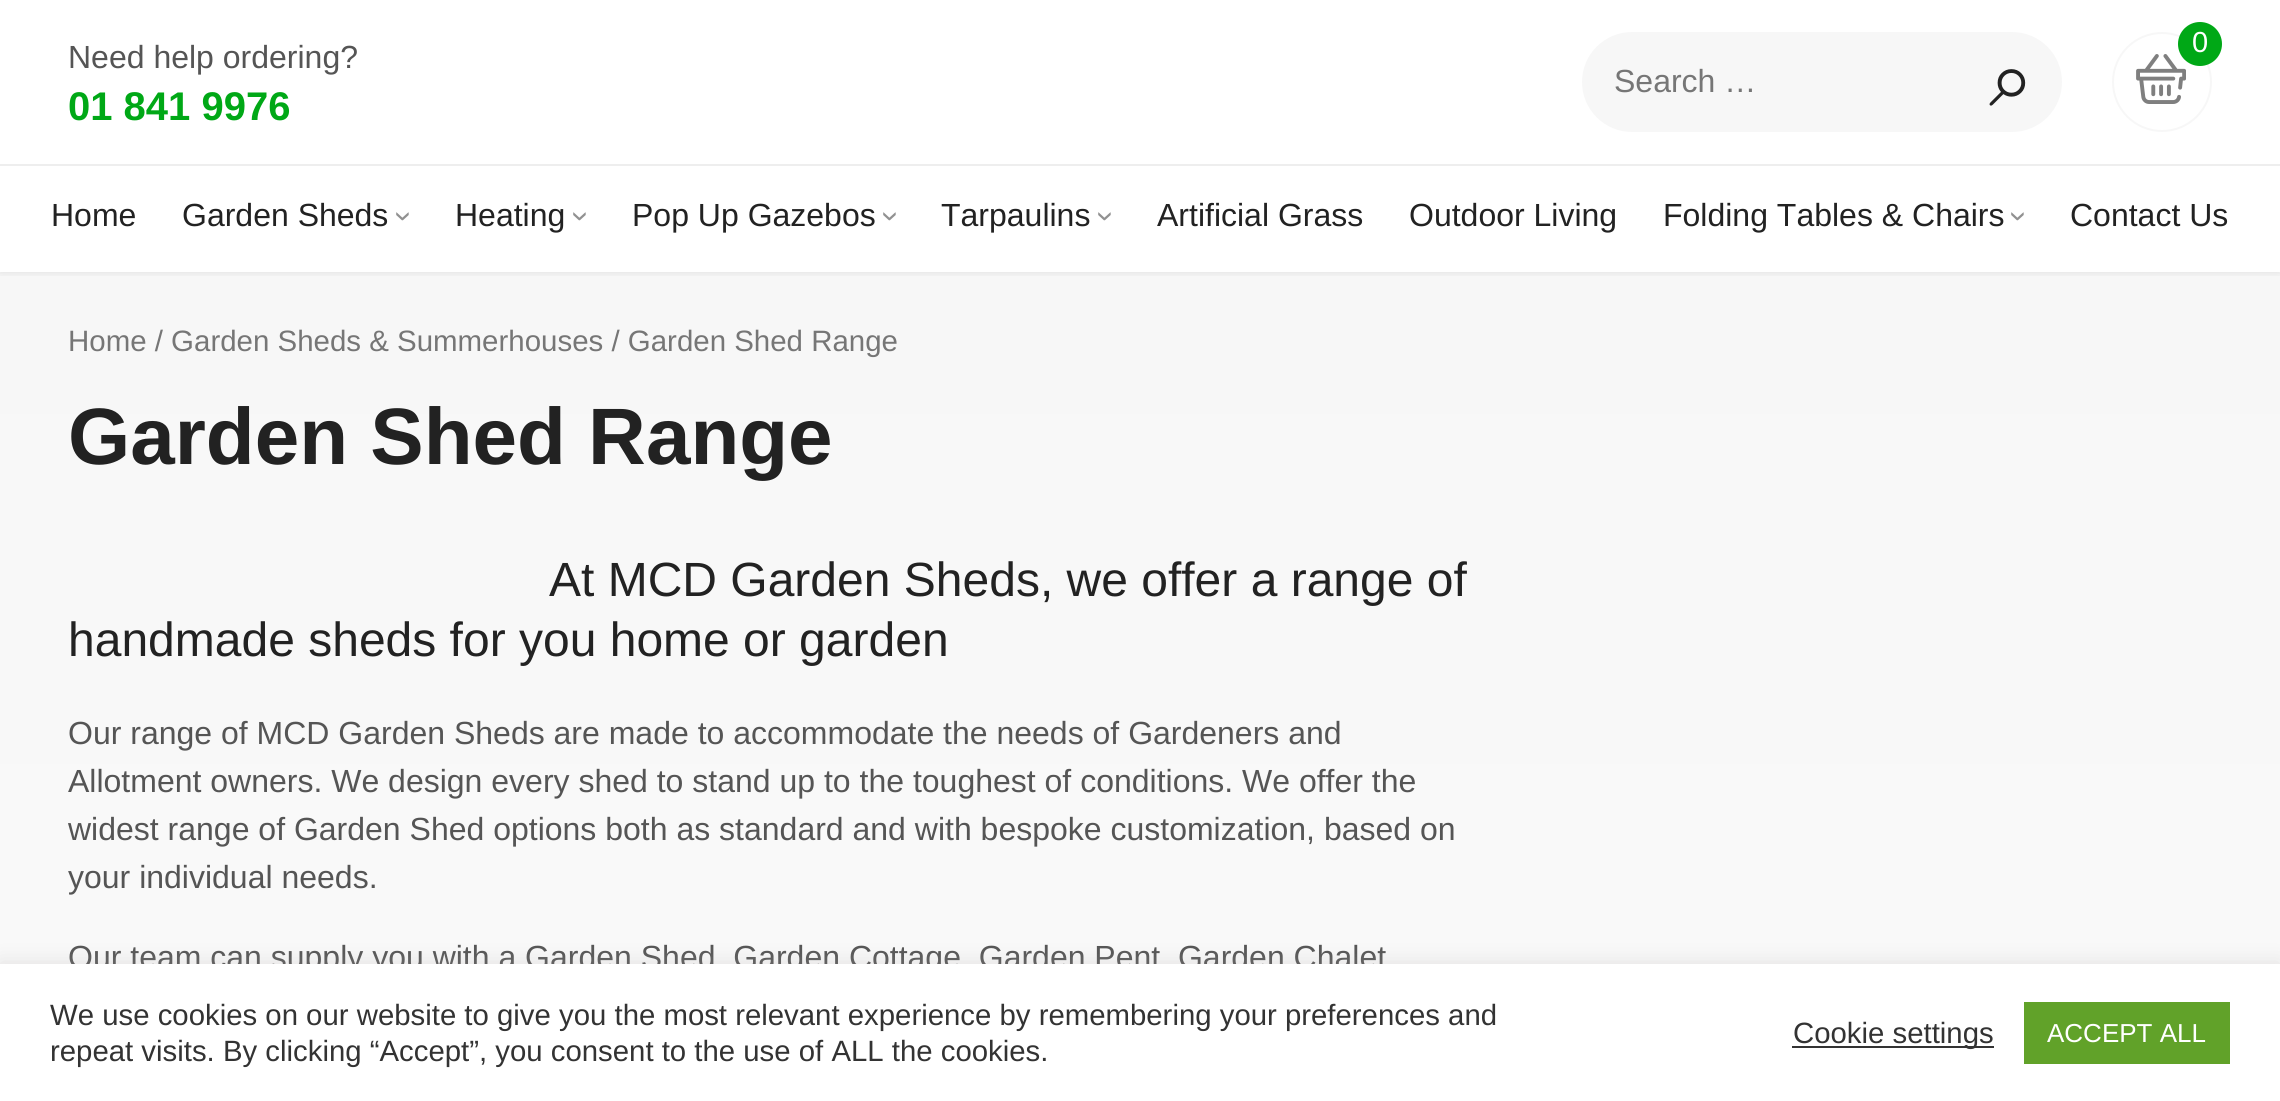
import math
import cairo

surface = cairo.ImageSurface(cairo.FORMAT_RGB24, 2280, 1101)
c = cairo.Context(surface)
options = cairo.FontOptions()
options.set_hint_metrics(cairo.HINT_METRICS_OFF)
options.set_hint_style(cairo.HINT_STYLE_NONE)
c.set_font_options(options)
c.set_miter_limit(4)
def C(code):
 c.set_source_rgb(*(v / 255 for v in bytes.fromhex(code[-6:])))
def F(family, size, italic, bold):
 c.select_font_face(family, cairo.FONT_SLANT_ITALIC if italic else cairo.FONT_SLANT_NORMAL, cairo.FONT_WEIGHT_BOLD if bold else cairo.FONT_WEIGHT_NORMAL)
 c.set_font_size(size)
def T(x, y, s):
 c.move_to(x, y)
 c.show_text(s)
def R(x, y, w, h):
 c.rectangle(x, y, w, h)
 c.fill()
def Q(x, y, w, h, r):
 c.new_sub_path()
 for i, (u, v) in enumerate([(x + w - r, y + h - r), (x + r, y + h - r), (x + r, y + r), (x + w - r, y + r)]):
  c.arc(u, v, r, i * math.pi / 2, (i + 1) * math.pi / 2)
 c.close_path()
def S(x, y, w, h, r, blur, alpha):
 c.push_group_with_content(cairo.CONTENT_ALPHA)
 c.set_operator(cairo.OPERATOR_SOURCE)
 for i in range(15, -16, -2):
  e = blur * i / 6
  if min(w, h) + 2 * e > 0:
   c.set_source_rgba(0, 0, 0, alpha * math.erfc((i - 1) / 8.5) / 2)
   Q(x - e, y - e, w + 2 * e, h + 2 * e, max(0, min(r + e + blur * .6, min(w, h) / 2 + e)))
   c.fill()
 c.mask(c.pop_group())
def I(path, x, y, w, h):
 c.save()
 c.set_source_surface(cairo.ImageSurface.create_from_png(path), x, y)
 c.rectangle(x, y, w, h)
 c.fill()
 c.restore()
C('ffffff')
c.paint()
gradient = cairo.LinearGradient(1140,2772,1140,272)
gradient.add_color_stop_rgba(0,1,1,1,1)
gradient.add_color_stop_rgba(.25,0.992,0.992,0.992,1)
gradient.add_color_stop_rgba(.5,0.984,0.984,0.984,1)
gradient.add_color_stop_rgba(.75,0.976,0.976,0.976,1)
gradient.add_color_stop_rgba(1,0.969,0.969,0.969,1)
c.set_source(gradient)
R(0,272,2280,692)
c.save()
c.rectangle(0,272,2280,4)
c.clip()
C('000000')
S(0,0,2280,272,0,5,.1)
c.restore()
F('Liberation Sans',32,0,0)
C('555555')
T(68,68,'Need help ordering?')
F('Liberation Sans',40,0,1)
C('00a816')
T(68,120,'01 841 9976')
C('f7f7f7')
Q(1582,32,480,100,50)
c.fill()
F('Liberation Sans',32,0,0)
C('767676')
T(1614,92,'Search …')
F('FreeSerif',80,0,0)
C('222222')
T(1989,106,'⌕')
c.new_path()
c.arc(2162,82,49,0,2 * math.pi)
C('f7f7f7')
c.stroke()
I('1.png',2136,54,50,50)
C('00a816')
c.arc(2200,44,22,0,2 * math.pi)
c.fill()
F('Liberation Sans',29,0,0)
C('ffffff')
T(2192,52,'0')
C('eeeeee')
R(0,164,2280,2)
F('Liberation Sans',32,0,0)
C('222222')
T(51,226,'Home')
T(182,226,'Garden Sheds')
C('919191')
c.save()
c.translate(394,211)
c.rotate(90 * math.pi / 180)
T(0,0,'›')
c.restore()
C('222222')
T(455,226,'Heating')
C('919191')
c.save()
c.translate(571,211)
c.rotate(90 * math.pi / 180)
T(0,0,'›')
c.restore()
C('222222')
T(632,226,'Pop Up Gazebos')
C('919191')
c.save()
c.translate(881,211)
c.rotate(90 * math.pi / 180)
T(0,0,'›')
c.restore()
C('222222')
T(941,226,'Tarpaulins')
C('919191')
c.save()
c.translate(1096,211)
c.rotate(90 * math.pi / 180)
T(0,0,'›')
c.restore()
C('222222')
T(1157,226,'Artificial Grass')
T(1409,226,'Outdoor Living')
T(1663,226,'Folding Tables & Chairs')
C('919191')
c.save()
c.translate(2009,211)
c.rotate(90 * math.pi / 180)
T(0,0,'›')
c.restore()
C('222222')
T(2070,226,'Contact Us')
F('Liberation Sans',29.45,0,0)
C('767676')
T(68,351,'Home / Garden Sheds & Summerhouses / Garden Shed Range')
F('Liberation Sans',80,0,1)
C('222222')
T(68,464,'Garden Shed Range')
F('Liberation Sans',48,0,0)
T(549,596,'At MCD Garden Sheds, we offer a range of')
T(68,656,'handmade sheds for you home or garden')
F('Liberation Sans',32,0,0)
C('555555')
T(68,744,'Our range of MCD Garden Sheds are made to accommodate the needs of Gardeners and')
T(68,792,'Allotment owners. We design every shed to stand up to the toughest of conditions. We offer the')
T(68,840,'widest range of Garden Shed options both as standard and with bespoke customization, based on')
T(68,888,'your individual needs.')
T(68,968,'Our team can supply you with a Garden Shed, Garden Cottage, Garden Pent, Garden Chalet')
C('acabab')
S(0,962,2280,138,0,10,.3)
C('ffffff')
R(0,964,2280,137)
F('Liberation Sans',29.35,0,0)
C('333333')
T(50,1025,'We use cookies on our website to give you the most relevant experience by remembering your preferences and')
T(50,1061,'repeat visits. By clicking “Accept”, you consent to the use of ALL the cookies.')
R(1792,1046,202,2)
T(1793,1043,'Cookie settings')
C('61a229')
R(2024,1002,206,62)
F('Liberation Sans',26,0,0)
C('ffffff')
T(2047,1042,'ACCEPT ALL')
surface.write_to_png('o.png')
